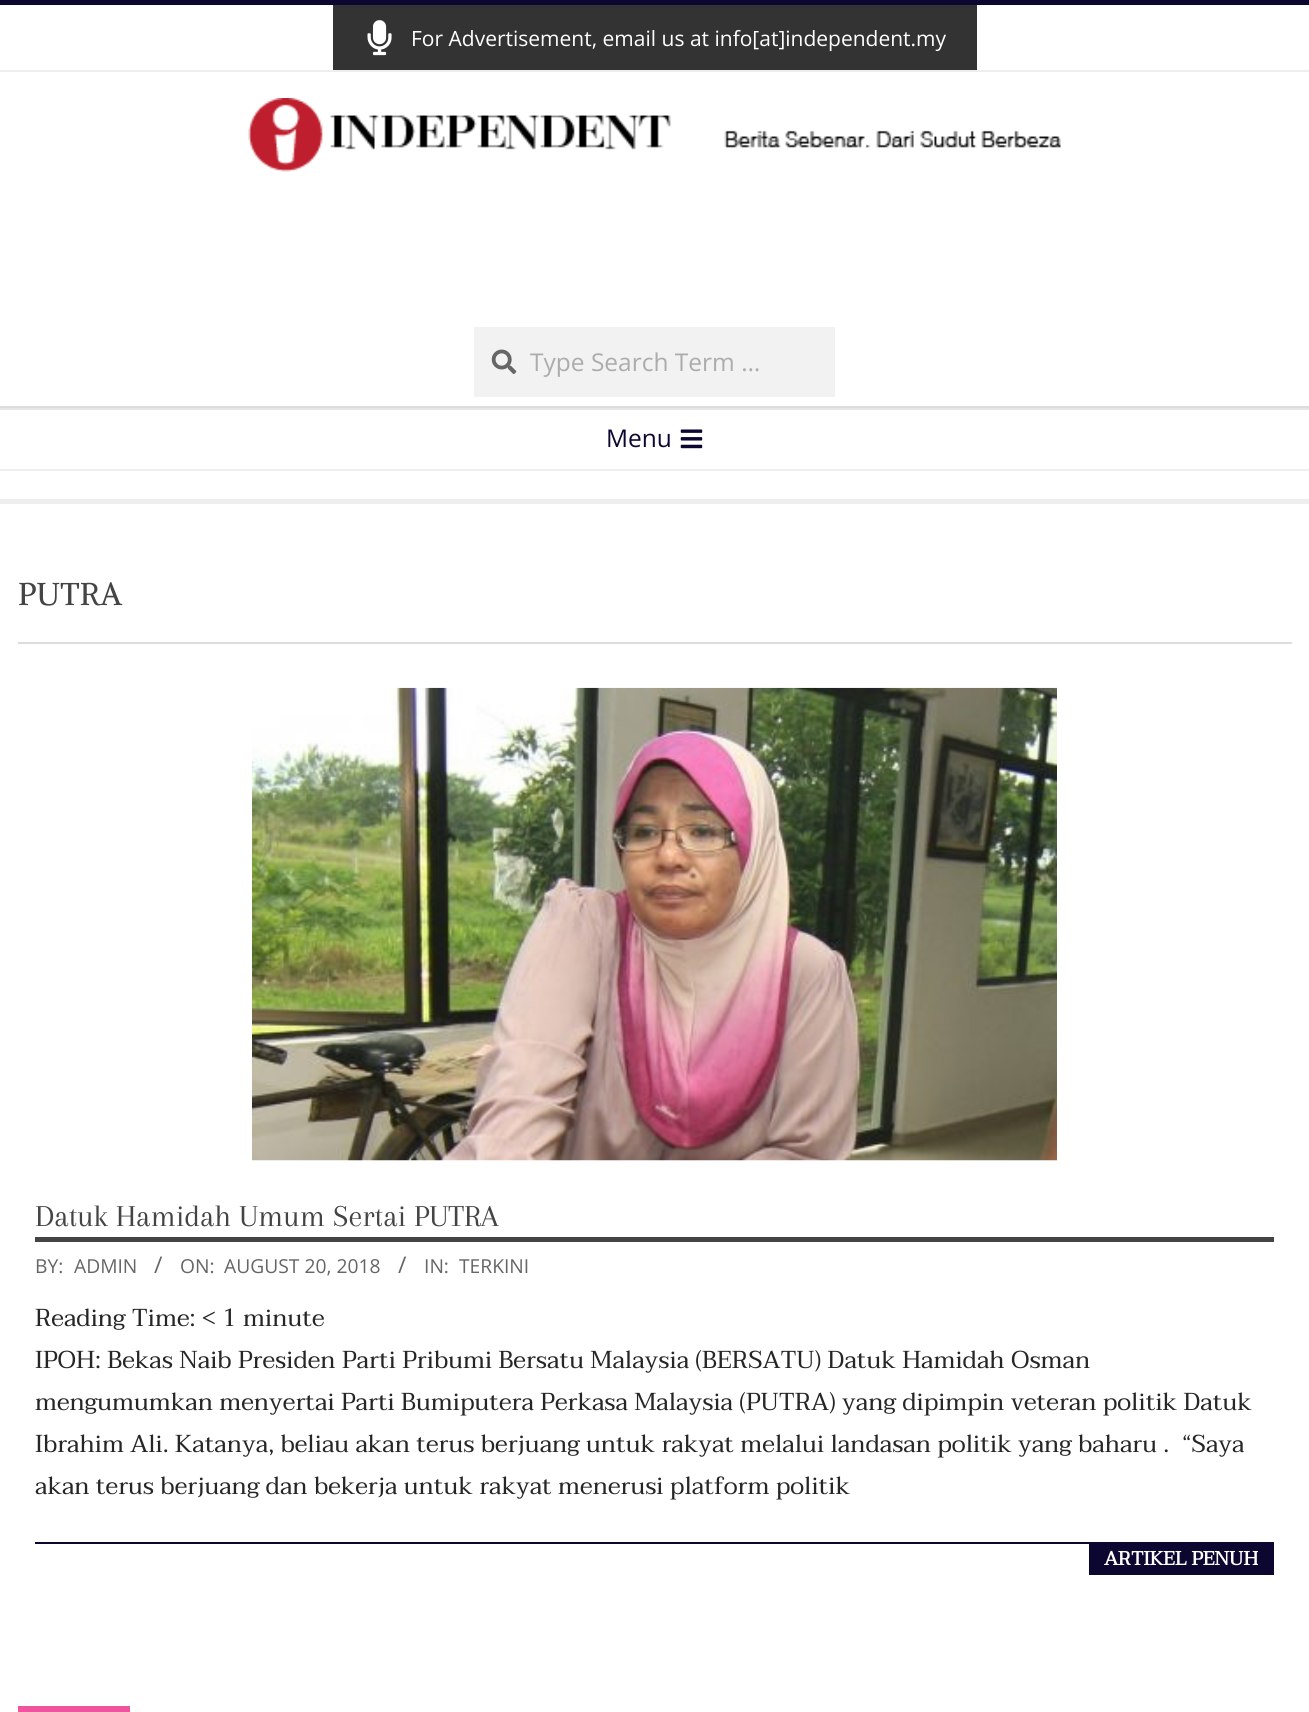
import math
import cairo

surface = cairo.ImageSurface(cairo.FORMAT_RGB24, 1309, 1712)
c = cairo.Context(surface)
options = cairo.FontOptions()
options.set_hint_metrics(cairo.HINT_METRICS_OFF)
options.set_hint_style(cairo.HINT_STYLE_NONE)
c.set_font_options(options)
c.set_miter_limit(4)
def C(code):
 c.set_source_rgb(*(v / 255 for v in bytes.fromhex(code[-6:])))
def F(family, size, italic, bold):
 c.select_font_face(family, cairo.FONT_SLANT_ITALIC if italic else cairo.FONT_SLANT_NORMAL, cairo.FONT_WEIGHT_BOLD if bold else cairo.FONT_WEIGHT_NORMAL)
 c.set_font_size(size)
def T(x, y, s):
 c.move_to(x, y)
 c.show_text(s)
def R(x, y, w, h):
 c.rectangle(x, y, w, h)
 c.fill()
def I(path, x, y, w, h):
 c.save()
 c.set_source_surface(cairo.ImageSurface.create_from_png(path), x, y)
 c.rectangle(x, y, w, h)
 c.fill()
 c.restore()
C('ffffff')
c.paint()
C('0c0730')
R(0,0,1309,5)
C('eeeeee')
R(0,70,1309,2)
C('333333')
R(333,5,644,65)
I('1.png',367,20,25,36)
F('Open Sans',21,0,0)
C('ffffff')
T(411,46,'For Advertisement, email us at info[at]independent.my')
C('dddddd')
R(0,406,1309,2)
I('2.png',248,98,813,74)
C('f2f2f2')
R(474,327,361,70)
I('3.png',491,349,26,25)
F('Open Sans',24.5,0,0)
C('acacac')
T(530,371,'Type Search Term …')
C('eeeeee')
R(0,499,1309,5)
C('e6e6e6')
R(0,408,1309,2)
C('0c0730')
T(606,447,'Menu')
I('4.png',680,429,23,20)
C('eeeeee')
R(0,469,1309,2)
C('dddddd')
R(18,642,1274,2)
F('Alike',31.5,0,0)
C('444444')
T(18,605,'PUTRA')
I('5.png',252,687,805,474)
R(35,1237,1239,5)
F('Arapey',31.5,0,0)
T(35,1226,'Datuk Hamidah Umum Sertai PUTRA')
F('Open Sans',19.25,0,0)
C('666666')
T(35,1273,'BY:')
T(74,1273,'ADMIN')
F('Open Sans',23,0,0)
T(154,1273,'/')
F('Open Sans',19.25,0,0)
T(180,1273,'ON:')
T(224,1273,'AUGUST 20, 2018')
F('Open Sans',23,0,0)
T(398,1273,'/')
F('Open Sans',19.25,0,0)
T(424,1273,'IN:')
T(459,1273,'TERKINI')
F('Taviraj',24.5,0,0)
C('262626')
T(35,1326,'Reading Time: < 1 minute')
T(35,1368,'IPOH: Bekas Naib Presiden Parti Pribumi Bersatu Malaysia (BERSATU) Datuk Hamidah Osman')
T(35,1410,'mengumumkan menyertai Parti Bumiputera Perkasa Malaysia (PUTRA) yang dipimpin veteran politik Datuk')
T(35,1452,'Ibrahim Ali. Katanya, beliau akan terus berjuang untuk rakyat melalui landasan politik yang baharu .  “Saya')
T(35,1494,'akan terus berjuang dan bekerja untuk rakyat menerusi platform politik')
C('0c0730')
R(35,1542,1239,2)
R(1089,1544,185,31)
F('Taviraj',19.25,0,1)
C('ffffff')
T(1104,1565,'ARTIKEL PENUH')
C('ee559d')
R(18,1706,112,6)
surface.write_to_png('o.png')
